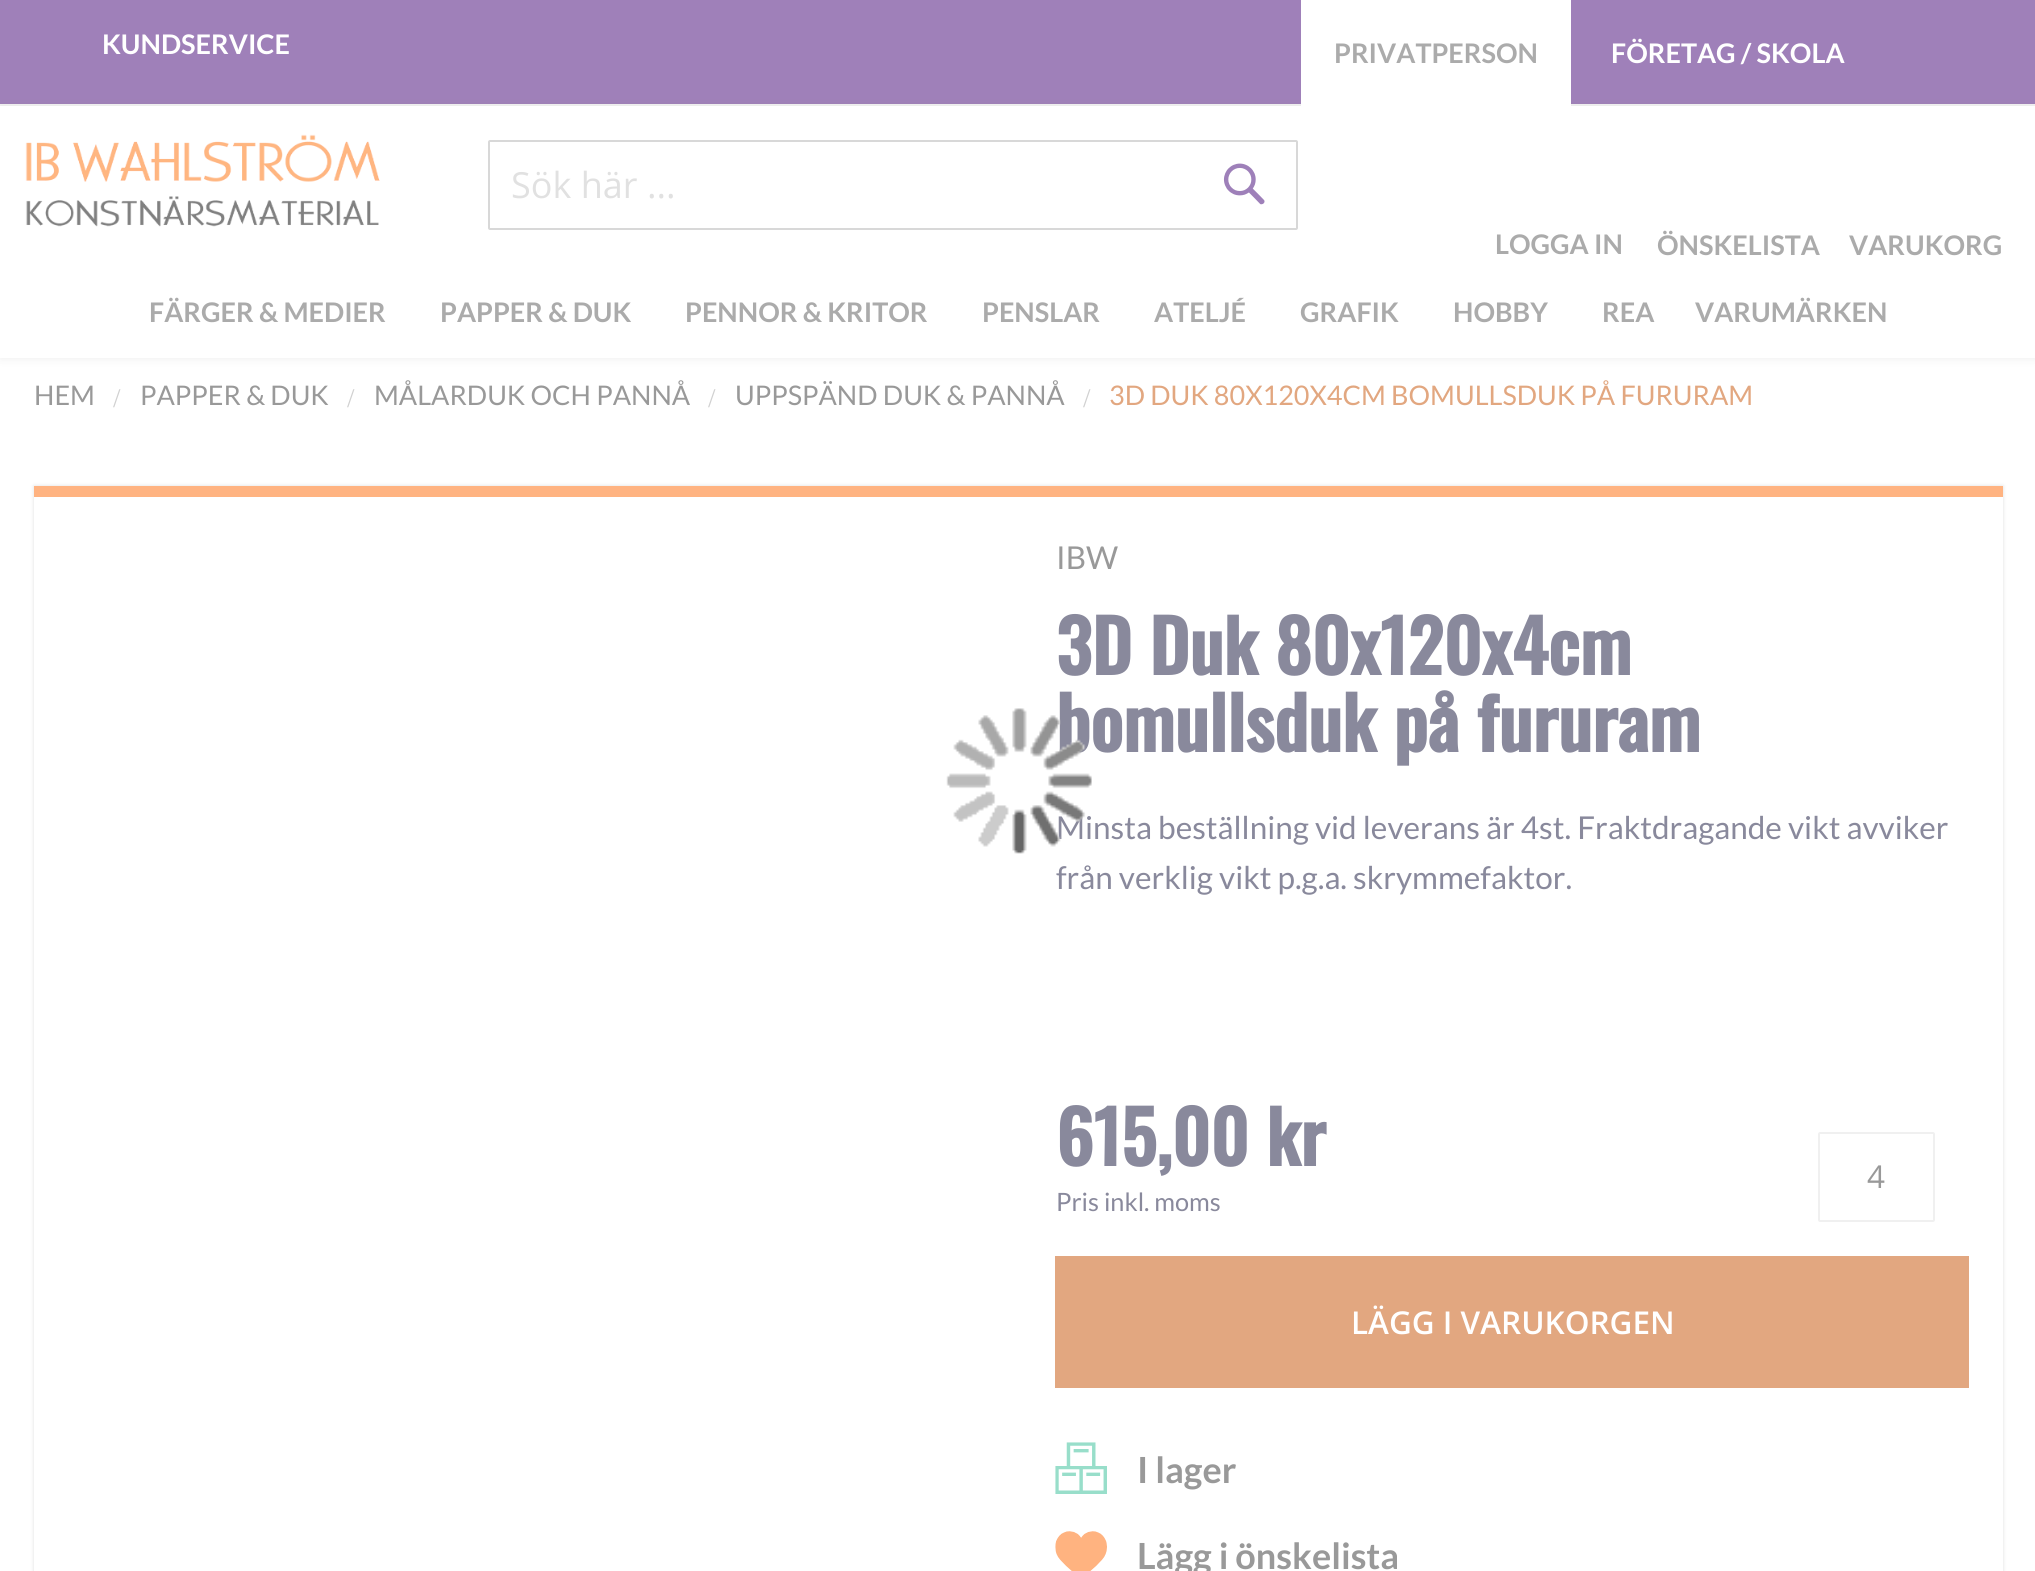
import math
import cairo

surface = cairo.ImageSurface(cairo.FORMAT_RGB24, 2035, 1571)
c = cairo.Context(surface)
options = cairo.FontOptions()
options.set_hint_metrics(cairo.HINT_METRICS_OFF)
options.set_hint_style(cairo.HINT_STYLE_NONE)
c.set_font_options(options)
c.set_miter_limit(4)
def C(code):
 c.set_source_rgb(*(v / 255 for v in bytes.fromhex(code[-6:])))
def F(family, size, italic, bold):
 c.select_font_face(family, cairo.FONT_SLANT_ITALIC if italic else cairo.FONT_SLANT_NORMAL, cairo.FONT_WEIGHT_BOLD if bold else cairo.FONT_WEIGHT_NORMAL)
 c.set_font_size(size)
def T(x, y, s):
 c.move_to(x, y)
 c.show_text(s)
def R(x, y, w, h):
 c.rectangle(x, y, w, h)
 c.fill()
def Q(x, y, w, h, r):
 c.new_sub_path()
 for i, (u, v) in enumerate([(x + w - r, y + h - r), (x + r, y + h - r), (x + r, y + r), (x + w - r, y + r)]):
  c.arc(u, v, r, i * math.pi / 2, (i + 1) * math.pi / 2)
 c.close_path()
def S(x, y, w, h, r, blur, alpha):
 c.push_group_with_content(cairo.CONTENT_ALPHA)
 c.set_operator(cairo.OPERATOR_SOURCE)
 for i in range(15, -16, -2):
  e = blur * i / 6
  if min(w, h) + 2 * e > 0:
   c.set_source_rgba(0, 0, 0, alpha * math.erfc((i - 1) / 8.5) / 2)
   Q(x - e, y - e, w + 2 * e, h + 2 * e, max(0, min(r + e + blur * .6, min(w, h) / 2 + e)))
   c.fill()
 c.mask(c.pop_group())
def I(path, x, y, w, h):
 c.save()
 c.set_source_surface(cairo.ImageSurface.create_from_png(path), x, y)
 c.rectangle(x, y, w, h)
 c.fill()
 c.restore()
C('ffffff')
c.paint()
C('9f80b9')
R(0,0,2035,104)
C('f4f4f4')
R(0,104,2035,2)
F('Lato',27,0,1)
C('ffffff')
T(102,54,'KUNDSERVICE')
C('808080')
S(0,106,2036,252,0,5.5,.15)
C('ffffff')
R(0,106,2035,252)
R(1301,0,270,106)
C('ababab')
T(1334,63,'PRIVATPERSON')
C('ffffff')
T(1611,63,'FÖRETAG / SKOLA')
C('ababab')
T(149,322,'FÄRGER & MEDIER')
T(440,322,'PAPPER & DUK')
T(685,322,'PENNOR & KRITOR')
T(982,322,'PENSLAR')
T(1154,322,'ATELJÉ')
T(1300,322,'GRAFIK')
T(1453,322,'HOBBY')
T(1602,322,'REA')
T(1695,322,'VARUMÄRKEN')
Q(489,141,808,88,1)
C('d8d8d8')
c.stroke()
F('Open Sans',36,0,0)
C('e1e1e1')
T(511,198,'Sök här ...')
I('1.png',1223,163,42,42)
I('2.png',25,134,355,93)
F('Lato',27,0,1)
C('ababab')
T(1495,254,'LOGGA IN')
T(1657,255,'ÖNSKELISTA')
T(1849,255,'VARUKORG')
F('Lato',27,0,0)
C('999999')
T(34,405,'HEM')
F('Liberation Serif',27,0,0)
C('d1d1d1')
T(113,407,'/')
F('Lato',27,0,0)
C('999999')
T(140,405,'PAPPER & DUK')
F('Liberation Serif',27,0,0)
C('d1d1d1')
T(347,407,'/')
F('Lato',27,0,0)
C('999999')
T(374,405,'MÅLARDUK OCH PANNÅ')
F('Liberation Serif',27,0,0)
C('d1d1d1')
T(708,407,'/')
F('Lato',27,0,0)
C('999999')
T(735,405,'UPPSPÄND DUK & PANNÅ')
F('Liberation Serif',27,0,0)
C('d1d1d1')
T(1083,407,'/')
F('Lato',27,0,0)
C('e2a780')
T(1109,405,'3D DUK 80X120X4CM BOMULLSDUK PÅ FURURAM')
C('808080')
S(34,486,1969,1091,0,2,.25)
C('ffffff')
R(34,497,1969,1074)
C('ffb381')
R(34,486,1969,11)
F('Lato',31.5,0,0)
C('999999')
T(1056,569,'IBW')
F('Oswald',72,0,1)
C('89899c')
T(1056,675,'3D Duk 80x120x4cm')
T(1056,752,'bomullsduk på fururam')
F('Lato',31.5,0,0)
T(1056,839,'Minsta beställning vid leverans är 4st. Fraktdragande vikt avviker')
T(1056,889,'från verklig vikt p.g.a. skrymmefaktor.')
F('Oswald',72,0,1)
T(1056,1166,'615,00 kr')
F('Lato',25.25,0,0)
T(1056,1211,'Pris inkl. moms')
Q(1819,1133,115,88,1)
C('f0f0f0')
c.stroke()
F('Open Sans',31.5,0,0)
C('999999')
T(1867,1188,'4')
C('e2a780')
R(1055,1256,914,132)
F('Open Sans SemiBold',31.5,0,0)
C('ffffff')
T(1351,1334,'LÄGG I VARUKORGEN')
I('3.png',1055,1442,52,52)
F('Lato',36,0,1)
C('999999')
T(1137,1483,'I lager')
I('4.png',1055,1531,52,40)
T(1137,1569,'Lägg i önskelista')
I('5.png',946,708,146,146)
surface.write_to_png('o.png')
